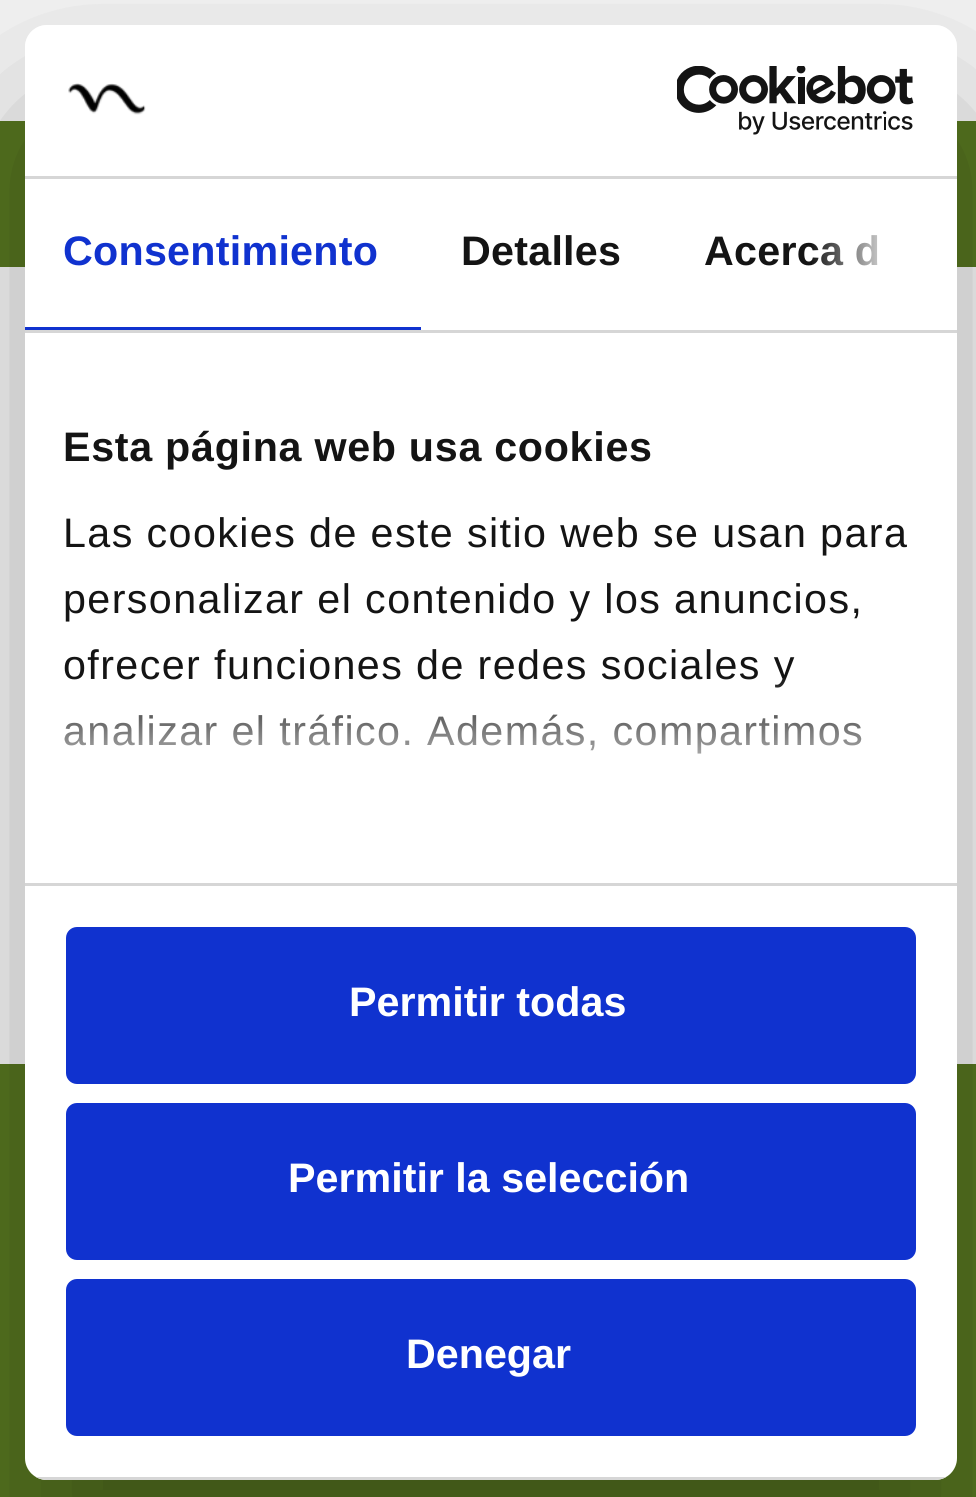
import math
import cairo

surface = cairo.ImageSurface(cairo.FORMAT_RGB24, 976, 1497)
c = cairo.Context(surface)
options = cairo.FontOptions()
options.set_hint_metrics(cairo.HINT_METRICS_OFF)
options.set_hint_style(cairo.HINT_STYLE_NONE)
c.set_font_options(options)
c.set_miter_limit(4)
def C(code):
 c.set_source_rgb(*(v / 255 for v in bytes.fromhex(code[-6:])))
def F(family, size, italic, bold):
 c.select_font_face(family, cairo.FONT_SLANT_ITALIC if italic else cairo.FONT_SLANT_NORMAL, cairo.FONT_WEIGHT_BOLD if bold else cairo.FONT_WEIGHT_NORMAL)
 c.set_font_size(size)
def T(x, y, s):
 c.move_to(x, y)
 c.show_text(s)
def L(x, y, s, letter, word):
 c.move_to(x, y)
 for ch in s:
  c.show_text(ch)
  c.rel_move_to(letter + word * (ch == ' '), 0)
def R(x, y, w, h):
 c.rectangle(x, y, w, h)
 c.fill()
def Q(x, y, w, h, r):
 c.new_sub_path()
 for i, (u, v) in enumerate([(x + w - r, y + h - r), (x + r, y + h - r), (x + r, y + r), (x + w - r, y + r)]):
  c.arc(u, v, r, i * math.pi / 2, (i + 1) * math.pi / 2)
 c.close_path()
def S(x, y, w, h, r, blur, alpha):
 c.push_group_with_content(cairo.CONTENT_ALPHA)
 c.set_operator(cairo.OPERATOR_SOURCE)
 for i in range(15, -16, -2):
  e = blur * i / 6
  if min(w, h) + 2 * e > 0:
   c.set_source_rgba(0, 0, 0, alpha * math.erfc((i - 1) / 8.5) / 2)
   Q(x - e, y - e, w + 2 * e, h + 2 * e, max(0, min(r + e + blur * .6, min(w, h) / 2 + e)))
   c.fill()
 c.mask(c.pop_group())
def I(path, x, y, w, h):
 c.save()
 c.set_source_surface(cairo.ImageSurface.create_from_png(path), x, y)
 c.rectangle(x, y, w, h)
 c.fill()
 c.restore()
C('f5f5f5')
c.paint()
C('577620')
R(0,121,976,146)
R(0,1064,976,433)
c.save()
c.set_fill_rule(cairo.FILL_RULE_EVEN_ODD)
c.new_path()
c.move_to(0,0)
c.line_to(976,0)
c.line_to(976,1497)
c.line_to(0,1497)
c.close_path()
c.move_to(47,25)
c.line_to(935,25)
c.curve_to(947,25,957,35,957,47)
c.line_to(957,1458)
c.curve_to(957,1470,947,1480,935,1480)
c.line_to(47,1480)
c.curve_to(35,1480,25,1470,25,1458)
c.line_to(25,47)
c.curve_to(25,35,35,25,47,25)
c.close_path()
c.clip()
C('000000')
S(25,113,932,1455,22,93.5,.3)
c.restore()
C('ffffff')
Q(25,25,932,1455,22)
c.fill()
C('d6d6d6')
R(25,176,932,3)
I('1.png',68,83,78,32)
I('2.png',677,66,237,69)
R(25,330,932,3)
C('1032cf')
R(25,327,396,3)
F('Liberation Sans',41.25,0,1)
L(63,265,'Consentimiento',.25,0)
C('141414')
L(461,265,'Detalles',.25,0)
L(704,265,'Acerca d',.25,0)
gradient = cairo.LinearGradient(956,253,810,253)
gradient.add_color_stop_rgba(0,1,1,1,1)
gradient.add_color_stop_rgba(.5,1,1,1,.8)
gradient.add_color_stop_rgba(1,1,1,1,0)
c.set_source(gradient)
R(812,235,66,31)
C('d6d6d6')
R(25,883,932,3)
C('141414')
L(63,461,'Esta página web usa cookies',.7,0)
F('Liberation Sans',41.25,0,0)
L(63,547,'Las cookies de este sitio web se usan para',1.4,0)
L(63,613,'personalizar el contenido y los anuncios,',1.4,0)
L(63,679,'ofrecer funciones de redes sociales y',1.4,0)
L(63,745,'analizar el tráfico. Además, compartimos',1.4,0)
gradient = cairo.LinearGradient(472,881,472,675)
gradient.add_color_stop_rgba(0,1,1,1,1)
gradient.add_color_stop_rgba(.5,1,1,1,.8)
gradient.add_color_stop_rgba(1,1,1,1,0)
c.set_source(gradient)
R(65,678,796,76)
c.save()
Q(25,25,932,1455,22)
c.clip()
C('d6d6d6')
R(36,1477,910,3)
c.restore()
C('1032cf')
Q(69,930,844,151,8)
c.fill_preserve()
c.set_line_width(6)
c.stroke()
F('Liberation Sans',41.25,0,1)
C('ffffff')
T(349,1016,'Permitir todas')
C('1032cf')
Q(69,1106,844,151,8)
c.fill_preserve()
c.stroke()
C('ffffff')
T(288,1192,'Permitir la selección')
C('1032cf')
Q(69,1282,844,151,8)
c.fill_preserve()
c.stroke()
C('ffffff')
T(406,1368,'Denegar')
surface.write_to_png('o.png')
